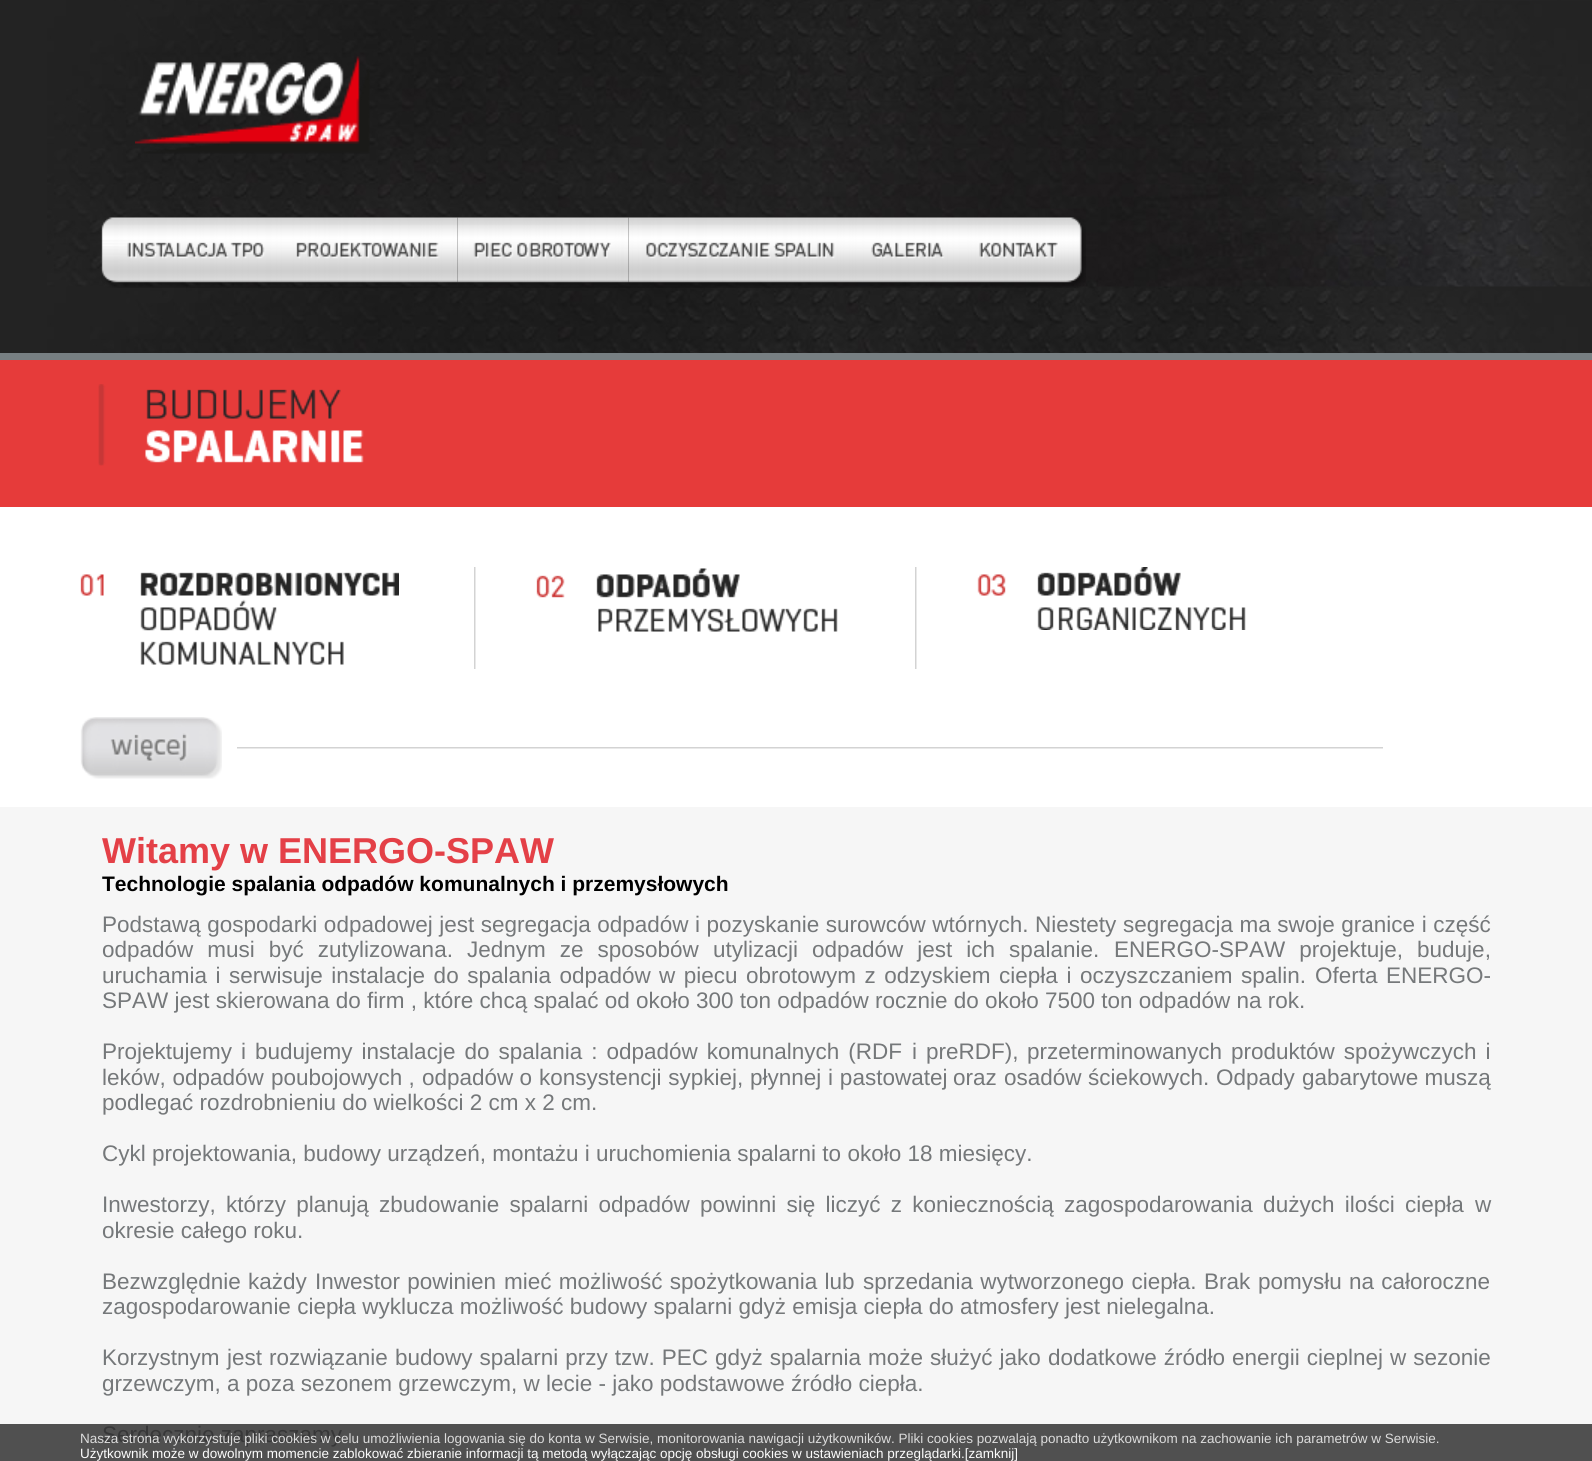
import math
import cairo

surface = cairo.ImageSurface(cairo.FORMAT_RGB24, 1592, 1461)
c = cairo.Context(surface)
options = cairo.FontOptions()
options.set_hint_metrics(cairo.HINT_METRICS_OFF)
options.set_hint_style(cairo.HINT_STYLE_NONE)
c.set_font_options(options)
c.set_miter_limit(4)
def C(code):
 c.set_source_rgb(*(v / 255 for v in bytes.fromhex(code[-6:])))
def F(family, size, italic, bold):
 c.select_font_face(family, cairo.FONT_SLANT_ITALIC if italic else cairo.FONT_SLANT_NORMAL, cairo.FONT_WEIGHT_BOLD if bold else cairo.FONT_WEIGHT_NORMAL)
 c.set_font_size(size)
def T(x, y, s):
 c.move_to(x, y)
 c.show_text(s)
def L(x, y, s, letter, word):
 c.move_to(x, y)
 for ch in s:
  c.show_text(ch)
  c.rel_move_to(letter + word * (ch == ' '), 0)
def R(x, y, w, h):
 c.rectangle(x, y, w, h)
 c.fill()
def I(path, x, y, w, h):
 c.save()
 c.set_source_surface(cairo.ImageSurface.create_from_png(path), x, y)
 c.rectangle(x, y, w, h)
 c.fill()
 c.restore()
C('ffffff')
c.paint()
C('232323')
R(0,0,47,353)
I('1.png',47,0,1545,353)
I('2.png',135,56,235,98)
I('3.png',101,217,181,71)
I('4.png',282,217,176,71)
I('5.png',457,217,172,71)
I('6.png',628,217,227,71)
I('7.png',855,217,105,71)
I('8.png',960,217,126,71)
C('e63b3a')
R(0,360,1592,147)
I('9.png',98,384,266,82)
C('777f82')
R(0,353,1592,7)
I('10.png',80,572,319,93)
I('11.png',474,567,2,102)
I('12.png',536,568,302,64)
I('11.png',915,567,2,102)
I('13.png',977,567,269,63)
I('14.png',80,717,142,62)
I('15.png',237,747,1146,2)
C('f6f6f6')
R(0,807,1592,617)
C('505050')
R(0,1424,1592,37)
F('Liberation Sans',36,0,1)
C('e44047')
T(102,863,'Witamy w ENERGO-SPAW')
F('Liberation Sans',21,0,1)
C('000000')
T(102,891,'Technologie spalania odpadów komunalnych i przemysłowych')
F('Liberation Sans',22.5,0,0)
C('75787a')
L(102,932,'Podstawą gospodarki odpadowej jest segregacja odpadów i pozyskanie surowców wtórnych.',0,.25)
T(1035,932,'Niestety')
L(1123,932,'segregacja ma swoje granice i część',0,.25)
L(102,957,'odpadów musi być zutylizowana. Jednym ze sposobów',0,7.75)
L(713,957,'utylizacji odpadów jest ich spalanie.',0,7.75)
L(1114,957,'ENERGO-SPAW projektuje, buduje,',0,7.75)
L(102,983,'uruchamia i serwisuje instalacje do spalania odpadów',0,2.25)
L(659,983,'w piecu obrotowym z odzyskiem ciepła i oczyszczaniem spalin.',0,2.25)
T(1315,983,'Oferta')
T(1386,983,'ENERGO-')
T(102,1008,'SPAW jest skierowana do firm , które chcą spalać od około 300 ton odpadów rocznie do około 7500 ton odpadów na rok.')
L(102,1059,'Projektujemy i budujemy instalacje do spalania : odpadów komunalnych (RDF',0,2.75)
T(912,1059,'i')
T(926,1059,'preRDF),')
L(1027,1059,'przeterminowanych produktów spożywczych i',0,2.75)
L(102,1085,'leków, odpadów',0,.5)
T(271,1085,'poubojowych ,')
T(422,1085,'odpadów o')
L(539,1085,'konsystencji sypkiej, płynnej i pastowatej',0,.5)
T(953,1085,'oraz')
T(1004,1085,'osadów')
L(1088,1085,'ściekowych. Odpady',0,.5)
T(1302,1085,'gabarytowe muszą')
T(102,1110,'podlegać rozdrobnieniu do wielkości 2 cm x 2 cm.')
T(102,1161,'Cykl projektowania, budowy urządzeń, montażu i uruchomienia spalarni to około 18 miesięcy.')
L(102,1212,'Inwestorzy, którzy planują zbudowanie spalarni odpadów powinni się liczyć z koniecznością',0,4)
L(1064,1212,'zagospodarowania dużych ilości ciepła',0,4)
T(1475,1212,'w')
T(102,1238,'okresie całego roku.')
L(102,1289,'Bezwzględnie każdy',0,1)
L(315,1289,'Inwestor powinien',0,1)
L(504,1289,'mieć możliwość spożytkowania lub',0,1)
L(863,1289,'sprzedania wytworzonego ciepła.',0,1)
T(1204,1289,'Brak')
L(1258,1289,'pomysłu na całoroczne',0,1)
T(102,1314,'zagospodarowanie ciepła wyklucza możliwość budowy spalarni gdyż emisja ciepła do atmosfery jest nielegalna.')
T(102,1365,'Korzystnym')
T(227,1365,'jest')
T(269,1365,'rozwiązanie')
L(395,1365,'budowy spalarni przy tzw. PEC gdyż spalarnia może służyć jako',0,.75)
L(1048,1365,'dodatkowe źródło energii cieplnej w sezonie',0,.75)
T(102,1391,'grzewczym, a poza sezonem grzewczym, w lecie - jako podstawowe źródło ciepła.')
C('373738')
T(102,1442,'Serdecznie zapraszamy')
F('Liberation Sans',13.5,0,0)
C('dcdcdc')
T(80,1443,'Nasza strona wykorzystuje pliki cookies w celu umożliwienia logowania się do konta w Serwisie, monitorowania nawigacji użytkowników. Pliki cookies pozwalają ponadto użytkownikom na zachowanie ich parametrów w Serwisie.')
C('fdfdfd')
T(80,1458,'Użytkownik może w dowolnym momencie zablokować zbieranie informacji tą metodą wyłączając opcję obsługi cookies w ustawieniach przeglądarki.[zamknij]')
surface.write_to_png('o.png')
